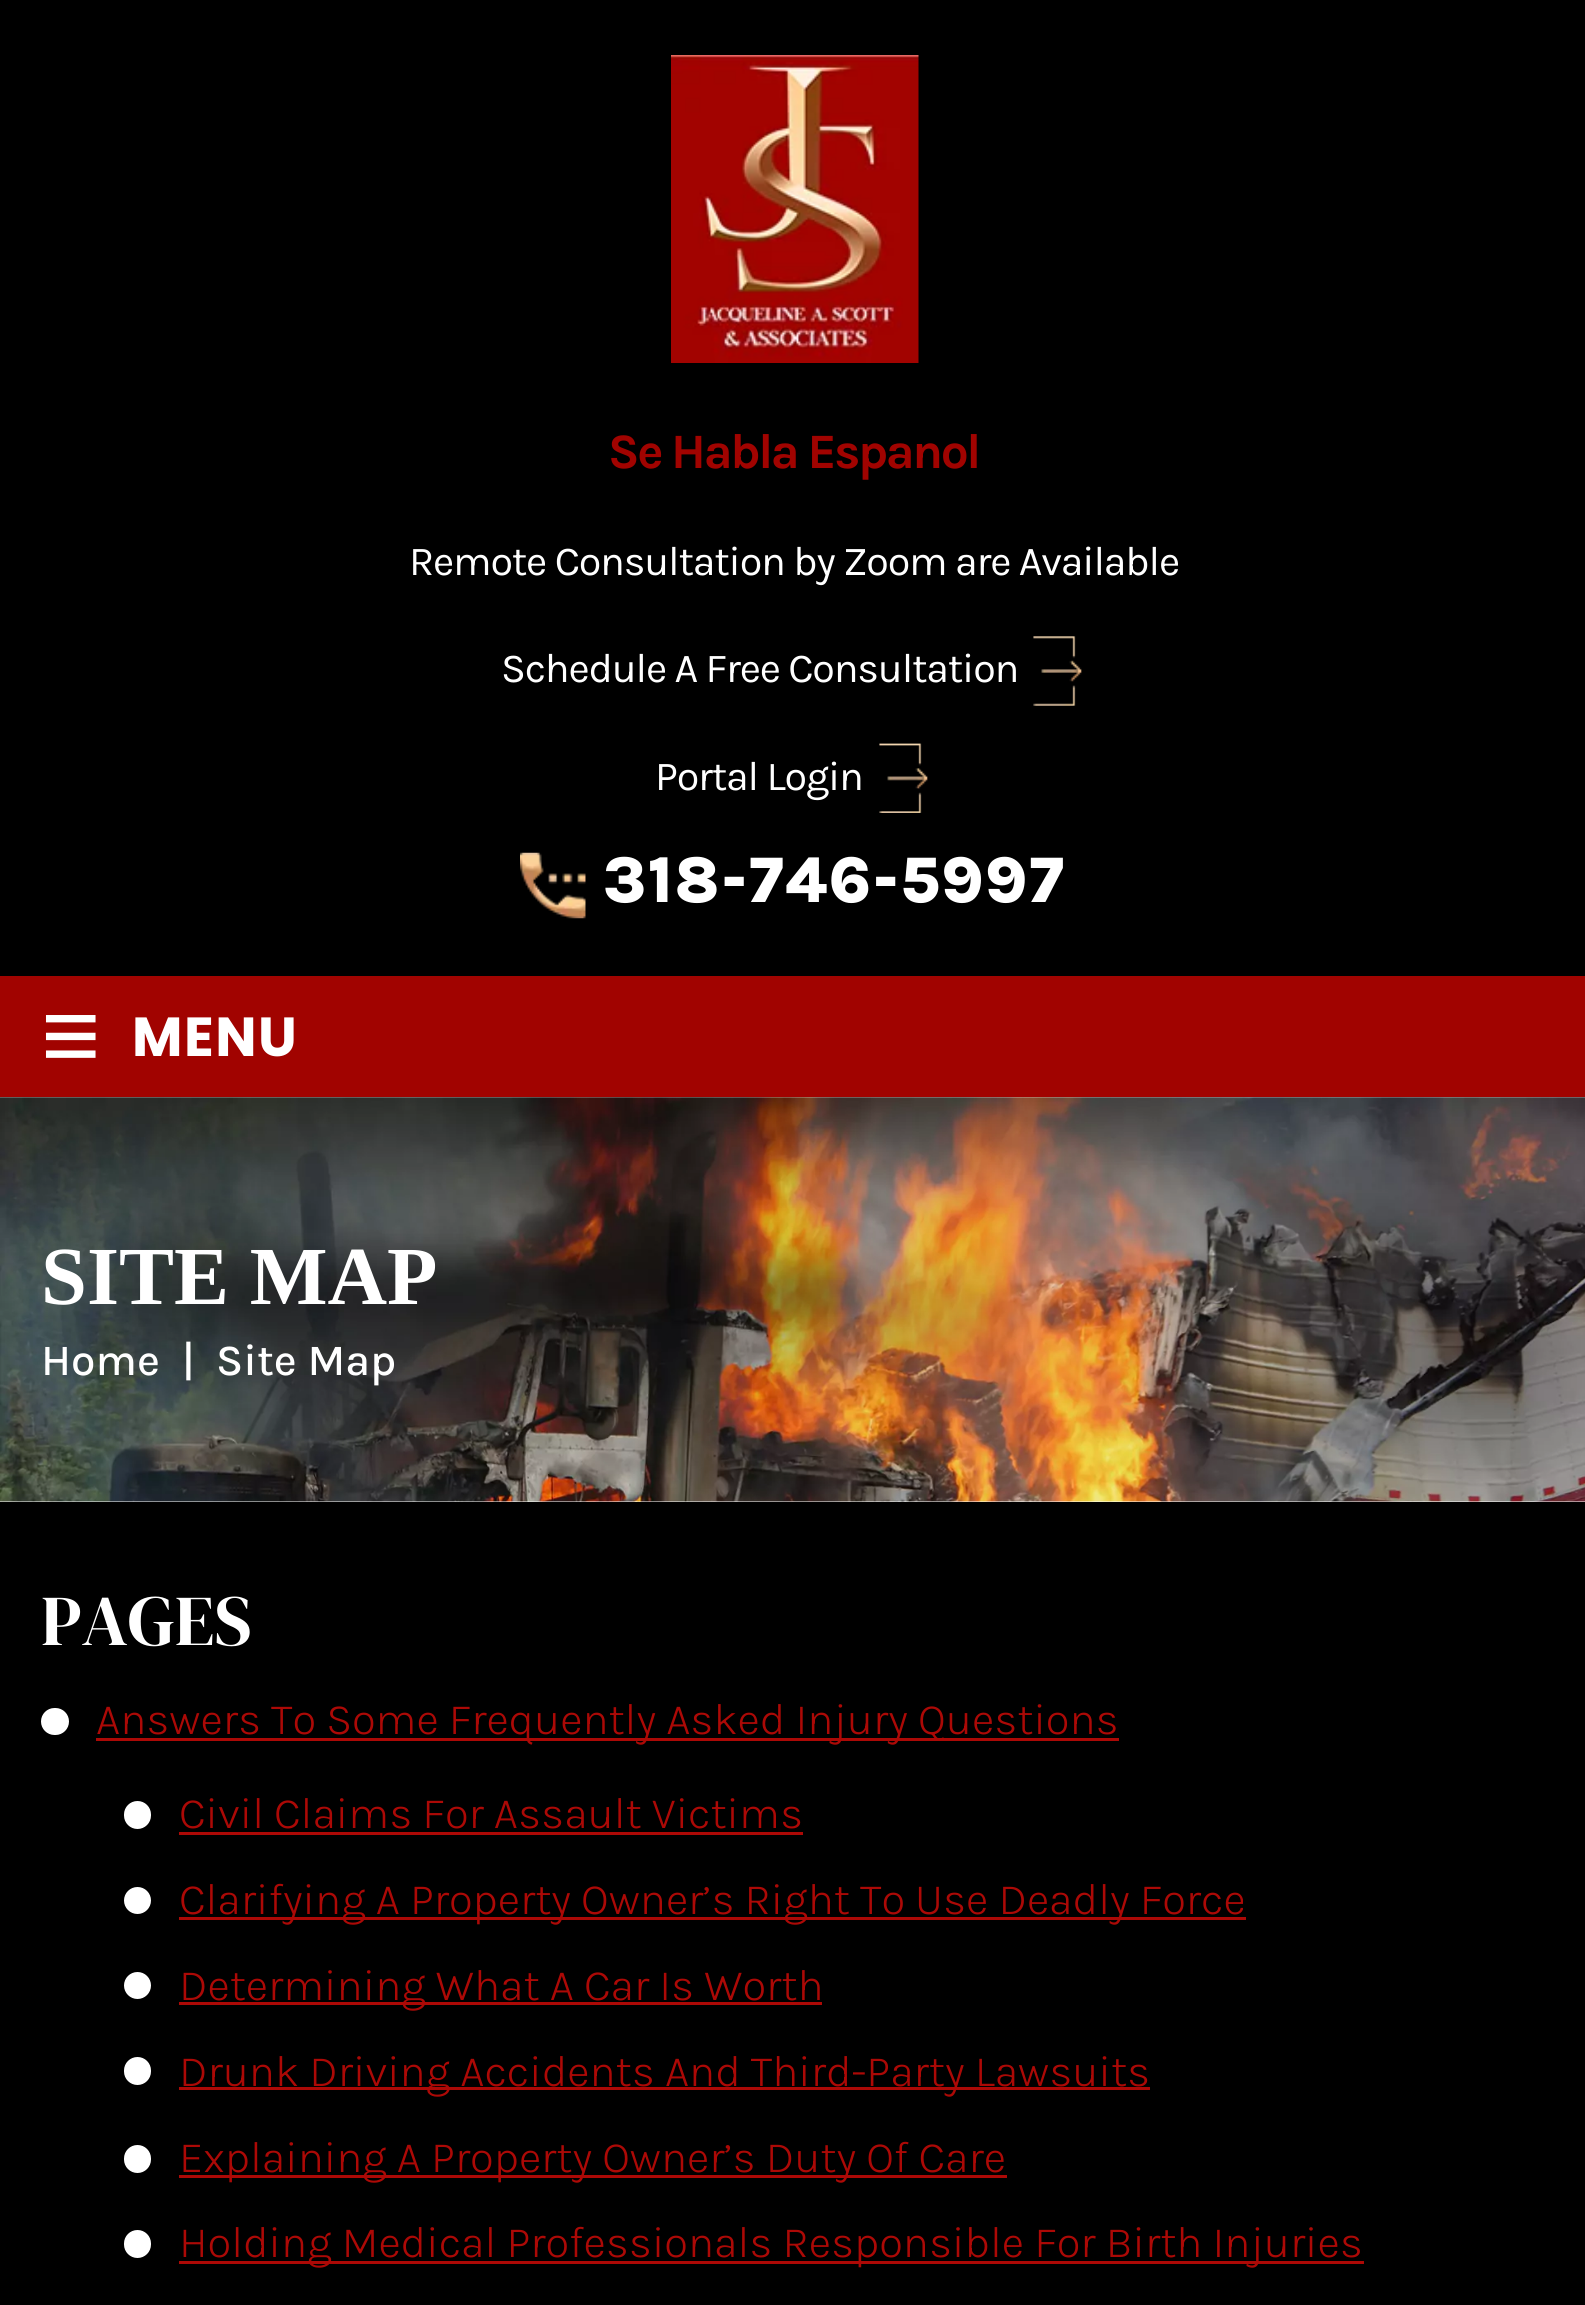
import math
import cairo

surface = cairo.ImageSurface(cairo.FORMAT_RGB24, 1585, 2305)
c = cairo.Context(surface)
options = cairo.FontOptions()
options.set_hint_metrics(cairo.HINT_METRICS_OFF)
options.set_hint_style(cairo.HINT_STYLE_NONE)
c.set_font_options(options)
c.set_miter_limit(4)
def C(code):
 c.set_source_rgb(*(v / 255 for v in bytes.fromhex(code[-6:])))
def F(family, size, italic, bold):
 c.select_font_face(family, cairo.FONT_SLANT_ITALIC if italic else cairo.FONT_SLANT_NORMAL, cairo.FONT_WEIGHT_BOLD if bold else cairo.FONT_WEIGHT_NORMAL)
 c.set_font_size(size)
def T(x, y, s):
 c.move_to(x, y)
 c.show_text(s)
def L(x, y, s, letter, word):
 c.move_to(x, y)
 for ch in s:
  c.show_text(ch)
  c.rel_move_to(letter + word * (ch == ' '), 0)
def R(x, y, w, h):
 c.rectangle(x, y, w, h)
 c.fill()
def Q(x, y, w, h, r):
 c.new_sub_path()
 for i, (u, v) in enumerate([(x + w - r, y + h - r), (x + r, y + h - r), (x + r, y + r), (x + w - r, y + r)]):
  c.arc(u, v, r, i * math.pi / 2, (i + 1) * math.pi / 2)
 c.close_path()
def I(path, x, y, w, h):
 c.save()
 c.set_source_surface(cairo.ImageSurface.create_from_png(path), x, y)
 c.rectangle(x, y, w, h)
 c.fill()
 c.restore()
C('ffffff')
c.paint()
C('000000')
R(0,0,1585,976)
I('1.png',671,55,248,308)
F('Karla',49.5,0,1)
C('a10300')
L(608,468,'Se Habla Espanol',-2.4,0)
F('Karla',41.25,0,0)
C('ffffff')
L(409,575,'Remote Consultation by Zoom are Available',-1.2,0)
L(501,682,'Schedule A Free Consultation',-1.2,0)
I('2.png',1033,636,49,70)
L(655,790,'Portal Login',-1.2,0)
I('3.png',879,743,49,70)
I('4.png',520,852,66,67)
F('Karla ExtraBold',66,0,0)
L(603,902,'318-746-5997',1.5,0)
C('a10300')
R(0,976,1585,121)
F('Liberation Sans',102,0,1)
C('ffffff')
T(41,1070,'≡')
F('Poppins',55,0,1)
L(132,1056,'MENU',1.5,0)
I('5.png',0,1097,1585,405)
F('Liberation Serif',82.5,0,1)
T(41,1304,'SITE MAP')
F('Karla Medium',44,0,0)
T(41,1375,'Home')
T(182,1375,'|')
T(216,1375,'Site Map')
C('000000')
R(0,1502,1585,803)
F('DM Serif Display',71.5,0,0)
C('ffffff')
T(41,1645,'PAGES')
Q(41,1708,28,27,13.5)
c.fill()
C('ac0906')
R(96,1738,1023,3)
F('Karla Light',44,0,0)
T(96,1734,'Answers To Some Frequently Asked Injury Questions')
C('ffffff')
Q(124,1801,27,28,13.5)
c.fill()
C('ac0906')
T(179,1828,'Civil Claims For Assault Victims')
R(179,1832,624,3)
C('ffffff')
c.new_path()
c.arc(137.5,1900.5,13.5,0,2 * math.pi)
c.fill()
C('ac0906')
R(179,1917,1067,3)
T(179,1914,'Clarifying A Property Owner’s Right To Use Deadly Force')
C('ffffff')
c.new_path()
c.arc(137.5,1985.5,13.5,0,2 * math.pi)
c.fill()
C('ac0906')
R(179,2002,643,3)
T(179,2000,'Determining What A Car Is Worth')
C('ffffff')
Q(124,2057,27,28,13.5)
c.fill()
C('ac0906')
R(179,2087,971,3)
T(179,2086,'Drunk Driving Accidents And Third-Party Lawsuits')
C('ffffff')
Q(124,2145,27,28,13.5)
c.fill()
C('ac0906')
R(179,2175,828,3)
T(179,2172,'Explaining A Property Owner’s Duty Of Care')
C('ffffff')
Q(124,2230,27,28,13.5)
c.fill()
C('ac0906')
R(179,2261,1185,3)
T(179,2257,'Holding Medical Professionals Responsible For Birth Injuries')
surface.write_to_png('o.png')
